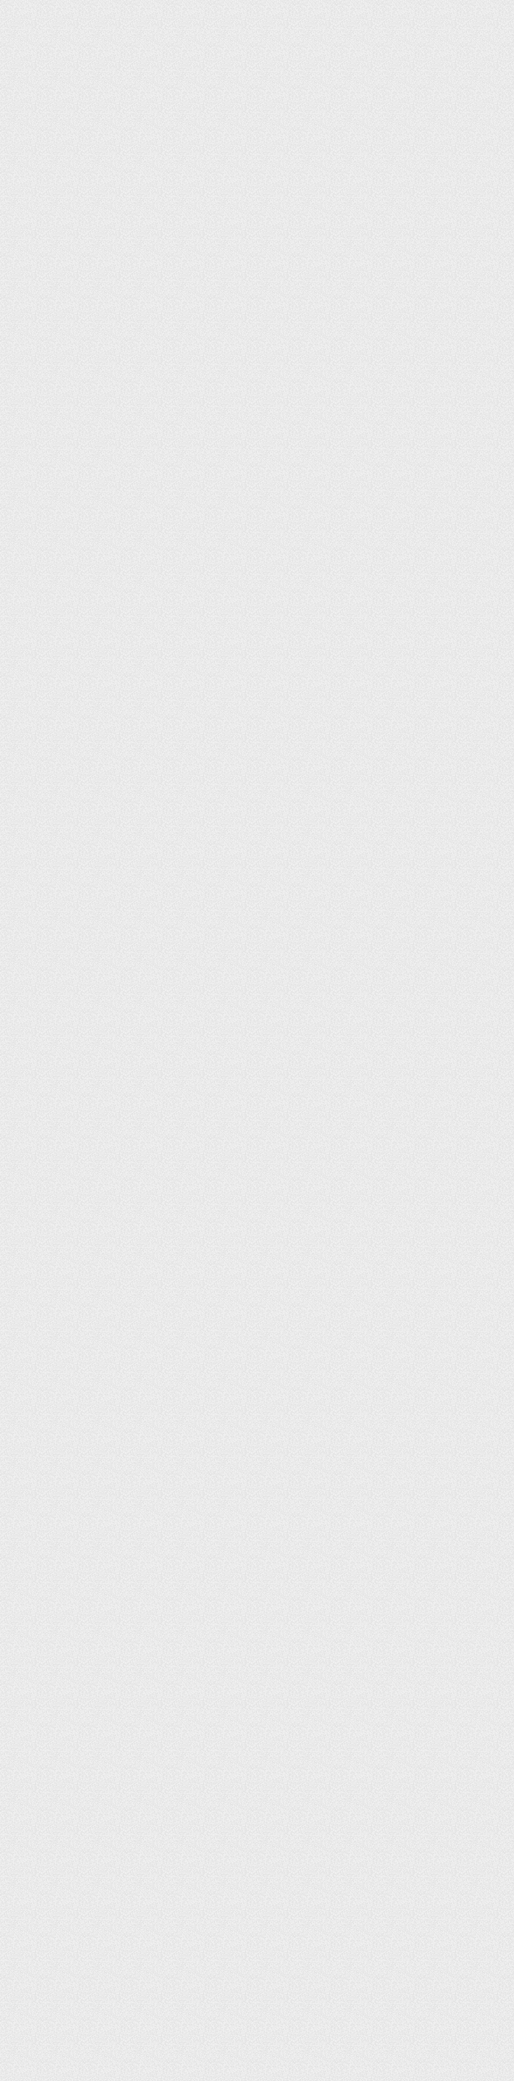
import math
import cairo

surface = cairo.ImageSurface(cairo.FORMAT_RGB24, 514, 2081)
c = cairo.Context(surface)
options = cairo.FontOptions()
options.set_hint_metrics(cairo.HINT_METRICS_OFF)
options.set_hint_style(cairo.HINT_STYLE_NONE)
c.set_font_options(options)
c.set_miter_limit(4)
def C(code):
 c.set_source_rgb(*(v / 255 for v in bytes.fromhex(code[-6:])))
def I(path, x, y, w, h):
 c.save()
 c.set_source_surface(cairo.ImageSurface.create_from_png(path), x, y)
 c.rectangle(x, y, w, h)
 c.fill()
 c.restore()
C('efefef')
c.paint()
I('1.png',0,0,514,2081)
surface.write_to_png('o.png')
